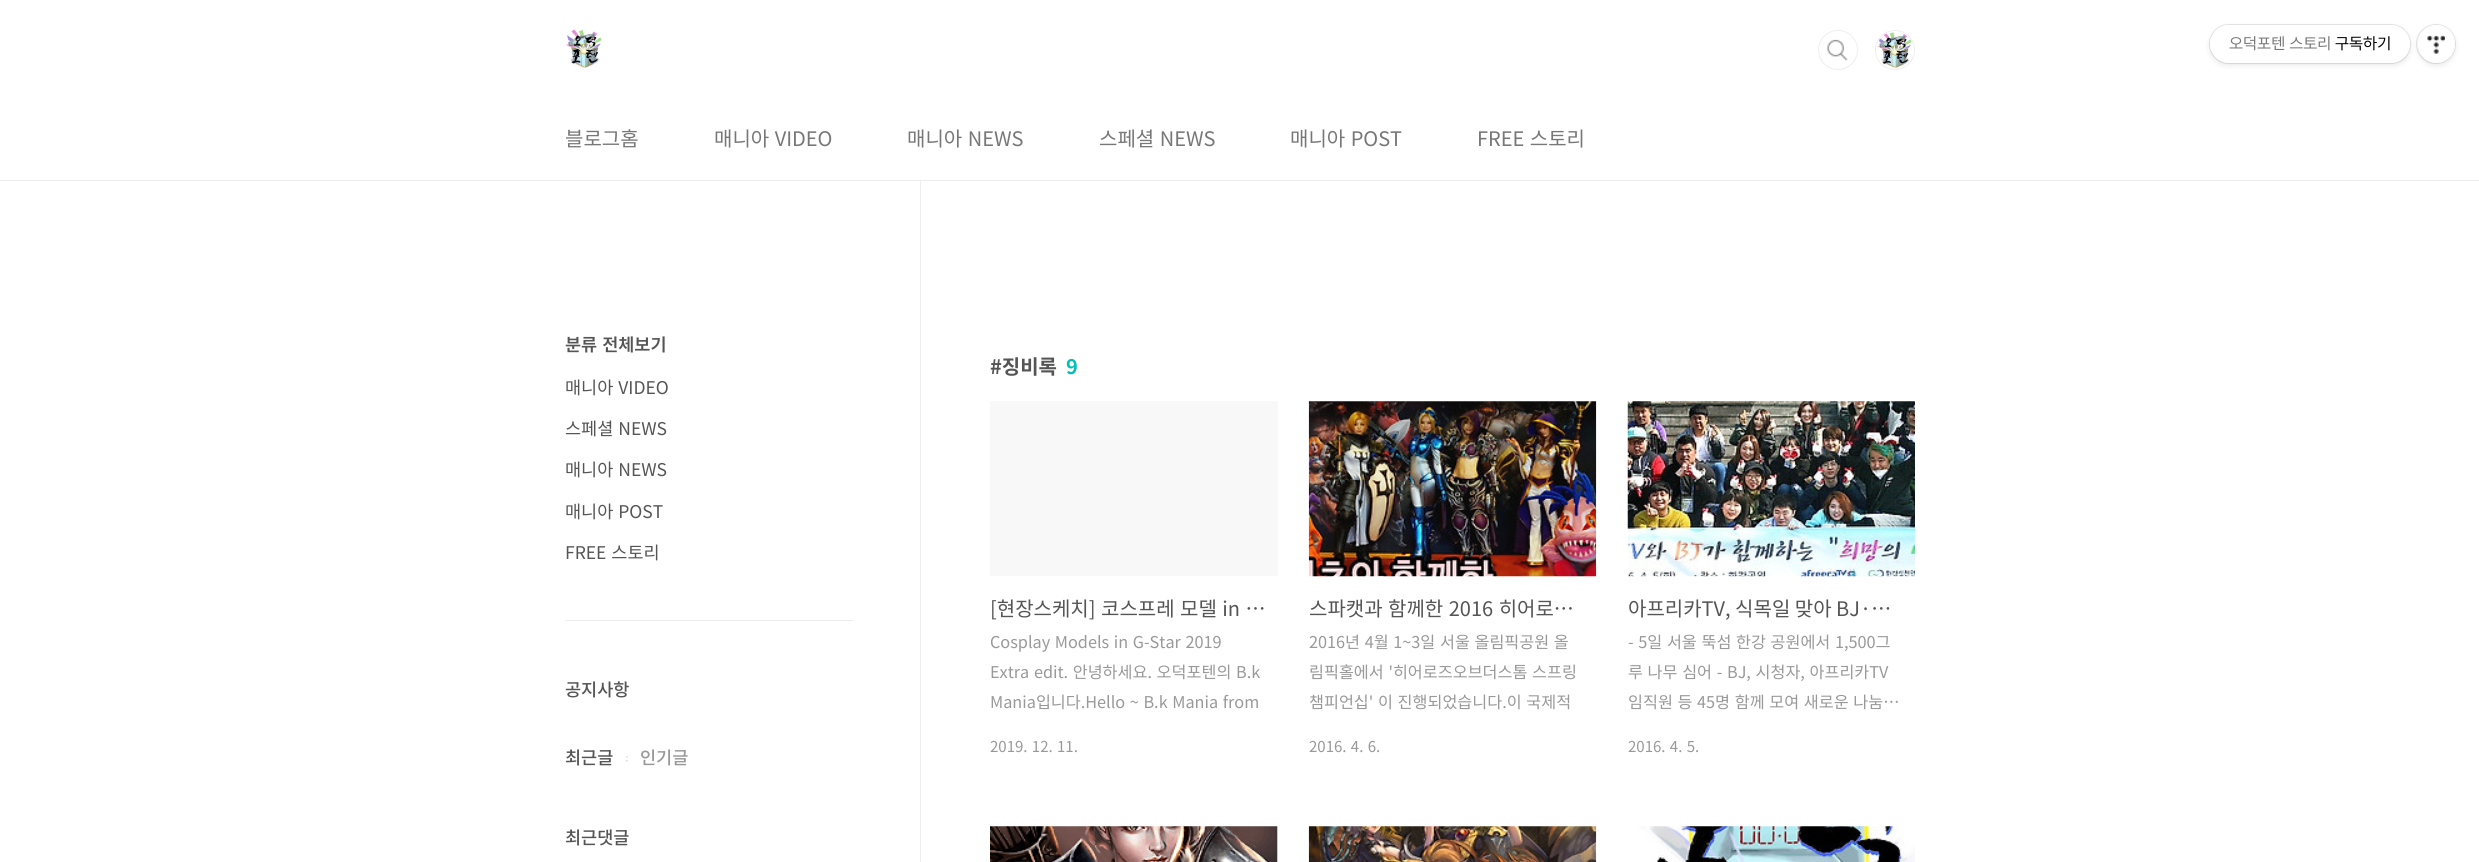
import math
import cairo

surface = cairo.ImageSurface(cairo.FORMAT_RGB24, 2479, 862)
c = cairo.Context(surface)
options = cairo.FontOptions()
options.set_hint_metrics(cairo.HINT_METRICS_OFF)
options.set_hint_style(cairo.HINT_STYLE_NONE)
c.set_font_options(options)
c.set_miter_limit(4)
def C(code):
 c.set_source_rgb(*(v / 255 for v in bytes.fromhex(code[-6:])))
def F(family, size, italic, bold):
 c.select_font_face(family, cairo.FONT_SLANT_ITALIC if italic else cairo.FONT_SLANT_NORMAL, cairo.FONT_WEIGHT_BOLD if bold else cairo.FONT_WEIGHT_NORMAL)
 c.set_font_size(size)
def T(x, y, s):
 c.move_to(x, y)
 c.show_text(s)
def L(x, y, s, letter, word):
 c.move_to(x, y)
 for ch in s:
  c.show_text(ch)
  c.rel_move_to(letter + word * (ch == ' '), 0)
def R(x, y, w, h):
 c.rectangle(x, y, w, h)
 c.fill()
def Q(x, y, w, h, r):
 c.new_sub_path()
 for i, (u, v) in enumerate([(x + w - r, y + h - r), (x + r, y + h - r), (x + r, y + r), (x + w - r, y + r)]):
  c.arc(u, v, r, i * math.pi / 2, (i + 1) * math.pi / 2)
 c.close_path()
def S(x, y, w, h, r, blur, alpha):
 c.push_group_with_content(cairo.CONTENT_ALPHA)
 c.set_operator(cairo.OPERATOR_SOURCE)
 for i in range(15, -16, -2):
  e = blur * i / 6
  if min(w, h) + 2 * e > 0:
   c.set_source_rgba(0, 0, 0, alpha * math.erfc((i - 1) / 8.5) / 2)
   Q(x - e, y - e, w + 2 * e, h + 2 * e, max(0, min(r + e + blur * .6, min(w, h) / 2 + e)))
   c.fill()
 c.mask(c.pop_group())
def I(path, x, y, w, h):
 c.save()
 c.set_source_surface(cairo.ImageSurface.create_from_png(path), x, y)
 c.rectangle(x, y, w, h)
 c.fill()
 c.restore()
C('ffffff')
c.paint()
C('000000')
S(2418,28,37,37,18.5,3,.1)
c.arc(2436,44,19.5,0,2 * math.pi)
c.set_source_rgba(0,0,0,0.1)
c.set_line_width(1)
c.stroke()
C('ffffff')
Q(2418,25,37,38,18.5)
c.fill()
C('000000')
S(2210,28,200,37,18.5,3,.1)
Q(2209.5,24.5,201,39,19.5)
c.set_source_rgba(0,0,0,0.1)
c.stroke()
C('ffffff')
Q(2210,25,200,38,19)
c.fill()
F('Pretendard',16.25,0,0)
C('777777')
T(2229,49,'오덕포텐 스토리')
C('000000')
T(2335,49,'구독하기')
I('1.png',2427,35,18,19)
C('eeeeee')
R(0,180,2479,1)
I('2.png',566,29,36,39)
Q(1819.5,31.5,36,37,18)
c.stroke()
C('ffffff')
c.arc(1838,50,20,0,2 * math.pi)
c.fill()
I('3.png',1827,39,21,22)
c.arc(1838,50,19.5,0,2 * math.pi)
C('eeeeee')
c.stroke()
c.arc(1895,50,19.5,0,2 * math.pi)
c.stroke()
I('4.png',1877,32,35,36)
F('Noto Sans KR',20,0,0)
C('777777')
T(565,146,'블로그홈')
L(714,146,'매니아 VIDEO',0,1)
L(907,146,'매니아 NEWS',0,1)
L(1099,146,'스페셜 NEWS',0,1)
L(1290,146,'매니아 POST',0,1)
L(1477,146,'FREE 스토리',0,1)
F('Noto Sans KR SemiBold',17.5,0,0)
C('555555')
L(565,351,'분류 전체보기',0,1)
F('Noto Sans KR',17.5,0,0)
L(565,394,'매니아 VIDEO',0,1)
L(565,435,'스페셜 NEWS',0,1)
L(565,476,'매니아 NEWS',0,1)
L(565,518,'매니아 POST',0,1)
L(565,559,'FREE 스토리',0,1)
C('eeeeee')
R(565,620,288,1)
F('Noto Sans KR Medium',17.5,0,0)
C('555555')
T(565,696,'공지사항')
T(565,764,'최근글')
I('5.png',626,756,2,6)
C('999999')
T(640,764,'인기글')
C('555555')
T(565,844,'최근댓글')
C('eeeeee')
R(920,181,1,681)
F('Noto Sans KR',20,0,1)
C('555555')
T(990,374,'#징비록')
C('04beb8')
T(1066,374,'9')
C('f8f8f8')
R(990,401,288,175)
F('Noto Sans KR',20,0,0)
C('555555')
L(990,616,'[현장스케치] 코스프레 모델 in …',0,1)
F('Noto Sans KR',16.25,0,0)
C('999999')
L(990,648,'Cosplay Models in G-Star 2019',0,1)
L(990,678,'Extra edit. 안녕하세요. 오덕포텐의 B.k',0,1)
L(990,708,'Mania입니다.Hello ~ B.k Mania from',0,1)
F('Noto Sans KR',15,0,0)
L(990,752,'2019. 12. 11.',0,1)
I('6.png',1308,401,289,176)
F('Noto Sans KR',20,0,0)
C('555555')
L(1309,616,'스파캣과 함께한 2016 히어로…',0,1)
F('Noto Sans KR',16.25,0,0)
C('999999')
L(1309,648,'2016년 4월 1~3일 서울 올림픽공원 올',0,1)
L(1309,678,'림픽홀에서 \'히어로즈오브더스톰 스프링',0,1)
L(1309,708,'챔피언십\' 이 진행되었습니다.이 국제적',0,1)
F('Noto Sans KR',15,0,0)
L(1309,752,'2016. 4. 6.',0,1)
I('7.png',1627,401,288,176)
F('Noto Sans KR',20,0,0)
C('555555')
T(1628,616,'아프리카TV, 식목일 맞아 BJ·…')
F('Noto Sans KR',16.25,0,0)
C('999999')
L(1628,648,'- 5일 서울 뚝섬 한강 공원에서 1,500그',0,1)
L(1628,678,'루 나무 심어 - BJ, 시청자, 아프리카TV',0,1)
L(1628,708,'임직원 등 45명 함께 모여 새로운 나눔…',0,1)
F('Noto Sans KR',15,0,0)
L(1628,752,'2016. 4. 5.',0,1)
C('f8f8f8')
R(990,826,288,36)
I('8.png',990,826,288,36)
I('9.png',1308,826,289,36)
I('10.png',1628,826,287,36)
surface.write_to_png('o.png')
